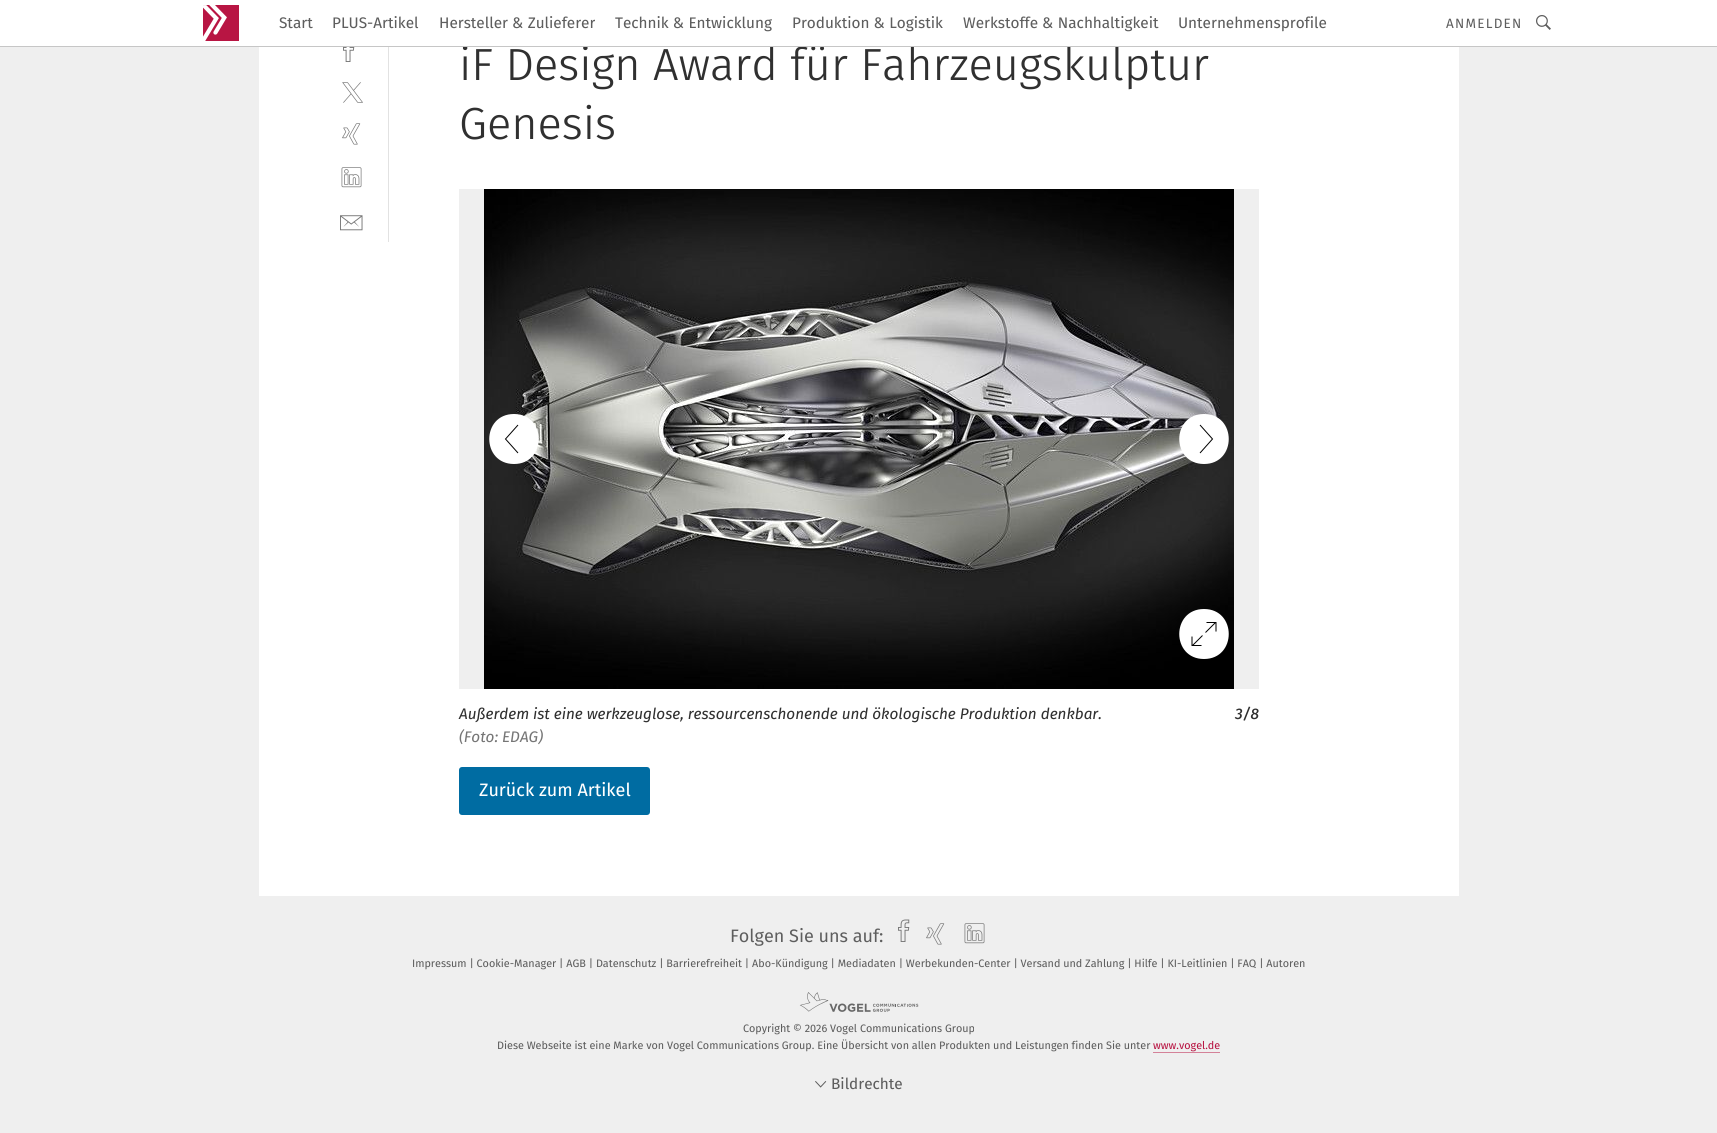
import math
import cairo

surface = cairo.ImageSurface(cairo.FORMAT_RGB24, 1717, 1133)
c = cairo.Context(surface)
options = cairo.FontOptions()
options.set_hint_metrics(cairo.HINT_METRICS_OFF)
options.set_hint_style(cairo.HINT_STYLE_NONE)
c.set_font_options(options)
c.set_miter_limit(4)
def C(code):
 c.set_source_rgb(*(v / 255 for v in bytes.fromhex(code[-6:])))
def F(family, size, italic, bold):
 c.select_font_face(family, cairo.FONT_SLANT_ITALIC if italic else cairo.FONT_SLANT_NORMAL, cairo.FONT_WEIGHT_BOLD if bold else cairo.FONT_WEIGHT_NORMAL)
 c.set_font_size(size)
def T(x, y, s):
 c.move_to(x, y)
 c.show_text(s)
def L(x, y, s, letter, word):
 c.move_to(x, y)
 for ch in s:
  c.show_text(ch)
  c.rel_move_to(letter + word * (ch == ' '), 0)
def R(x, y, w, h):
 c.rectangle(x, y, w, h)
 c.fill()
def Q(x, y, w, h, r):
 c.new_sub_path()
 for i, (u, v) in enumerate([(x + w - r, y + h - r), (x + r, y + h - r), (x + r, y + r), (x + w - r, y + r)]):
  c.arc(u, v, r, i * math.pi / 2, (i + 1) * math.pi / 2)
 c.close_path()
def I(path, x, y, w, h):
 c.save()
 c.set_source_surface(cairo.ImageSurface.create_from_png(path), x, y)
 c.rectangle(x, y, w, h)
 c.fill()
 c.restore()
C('efefef')
c.paint()
C('ffffff')
R(259,47,1200,849)
F('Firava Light',45,0,0)
C('303030')
T(459,80,'iF Design Award für Fahrzeugskulptur')
C('ffffff')
R(0,0,1717,46)
C('c6c6c6')
R(0,46,1717,1)
I('1.png',203,5,36,36)
F('Firava',15.3,0,0)
C('5e5e5e')
T(279,28,'Start')
T(332,28,'PLUS-Artikel')
T(439,28,'Hersteller & Zulieferer')
T(615,28,'Technik & Entwicklung')
T(792,28,'Produktion & Logistik')
T(963,28,'Werkstoffe & Nachhaltigkeit')
T(1178,28,'Unternehmensprofile')
F('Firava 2',13.5,0,0)
L(1446,28,'ANMELDEN',1.25,0)
I('2.png',1536,15,15,15)
C('e2e2e2')
R(388,47,1,195)
I('3.png',343,47,12,15)
I('4.png',342,82,21,21)
I('5.png',342,123,19,22)
I('6.png',341,167,21,21)
I('7.png',340,215,23,16)
F('Firava Light',45,0,0)
C('303030')
T(459,139,'Genesis')
C('efefef')
R(459,189,800,500)
I('8.png',484,189,750,500)
C('ffffff')
c.new_path()
c.move_to(514,464)
c.curve_to(547,464,547,414,514,414)
c.curve_to(481,414,481,464,514,464)
c.fill()
c.new_path()
c.move_to(518,425)
c.line_to(505.5,439)
c.line_to(518,453)
C('000000')
c.set_line_width(1)
c.stroke()
C('ffffff')
c.new_path()
c.move_to(1204,414)
c.curve_to(1171,414,1171,464,1204,464)
c.curve_to(1237,464,1237,414,1204,414)
c.fill()
c.new_path()
c.move_to(1200,453)
c.line_to(1212.5,439)
c.line_to(1200,425)
C('000000')
c.stroke()
C('ffffff')
c.new_path()
c.move_to(1204,659)
c.curve_to(1237,659,1237,609,1204,609)
c.curve_to(1171,609,1171,659,1204,659)
c.fill()
c.new_path()
c.move_to(1216,631.5)
c.line_to(1216,622.5)
c.line_to(1206.5,622.5)
c.move_to(1192,636.5)
c.line_to(1192,645.5)
c.line_to(1201.5,645.5)
c.move_to(1215.5,622.5)
c.line_to(1205.5,632.5)
c.move_to(1202.5,635.5)
c.line_to(1192.5,645.5)
C('000000')
c.stroke()
F('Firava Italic',15.3,1,0)
C('303030')
T(459,719,'Außerdem ist eine werkzeuglose, ressourcenschonende und ökologische Produktion denkbar.')
C('767676')
T(459,742,'(Foto: EDAG)')
F('Firava Italic Medium',15.3,1,0)
C('303030')
T(1235,719,'3/8')
C('006ca2')
Q(459,767,191,48,3)
c.fill()
F('Firava',18,0,0)
C('ffffff')
T(479,796,'Zurück zum Artikel')
F('Firava 2',18,0,0)
C('5e5e5e')
T(730,942,'Folgen Sie uns auf:')
I('9.png',898,919,12,23)
I('10.png',926,923,19,22)
I('11.png',964,923,21,21)
F('Firava',10.8,0,0)
T(412,967,'Impressum | Cookie-Manager | AGB | Datenschutz | Barrierefreiheit | Abo-Kündigung | Mediadaten | Werbekunden-Center | Versand und Zahlung | Hilfe | KI-Leitlinien | FAQ | Autoren')
I('12.png',799,992,120,20)
T(743,1032,'Copyright © 2026 Vogel Communications Group')
T(497,1049,'Diese Webseite ist eine Marke von Vogel Communications Group. Eine Übersicht von allen Produkten und Leistungen finden Sie unter')
C('b81543')
T(1153,1049,'www.vogel.de')
C('d48299')
R(1153,1052,67,1)
I('13.png',815,1081,12,7)
F('Firava',15.3,0,0)
C('5e5e5e')
T(831,1089,'Bildrechte')
surface.write_to_png('o.png')
